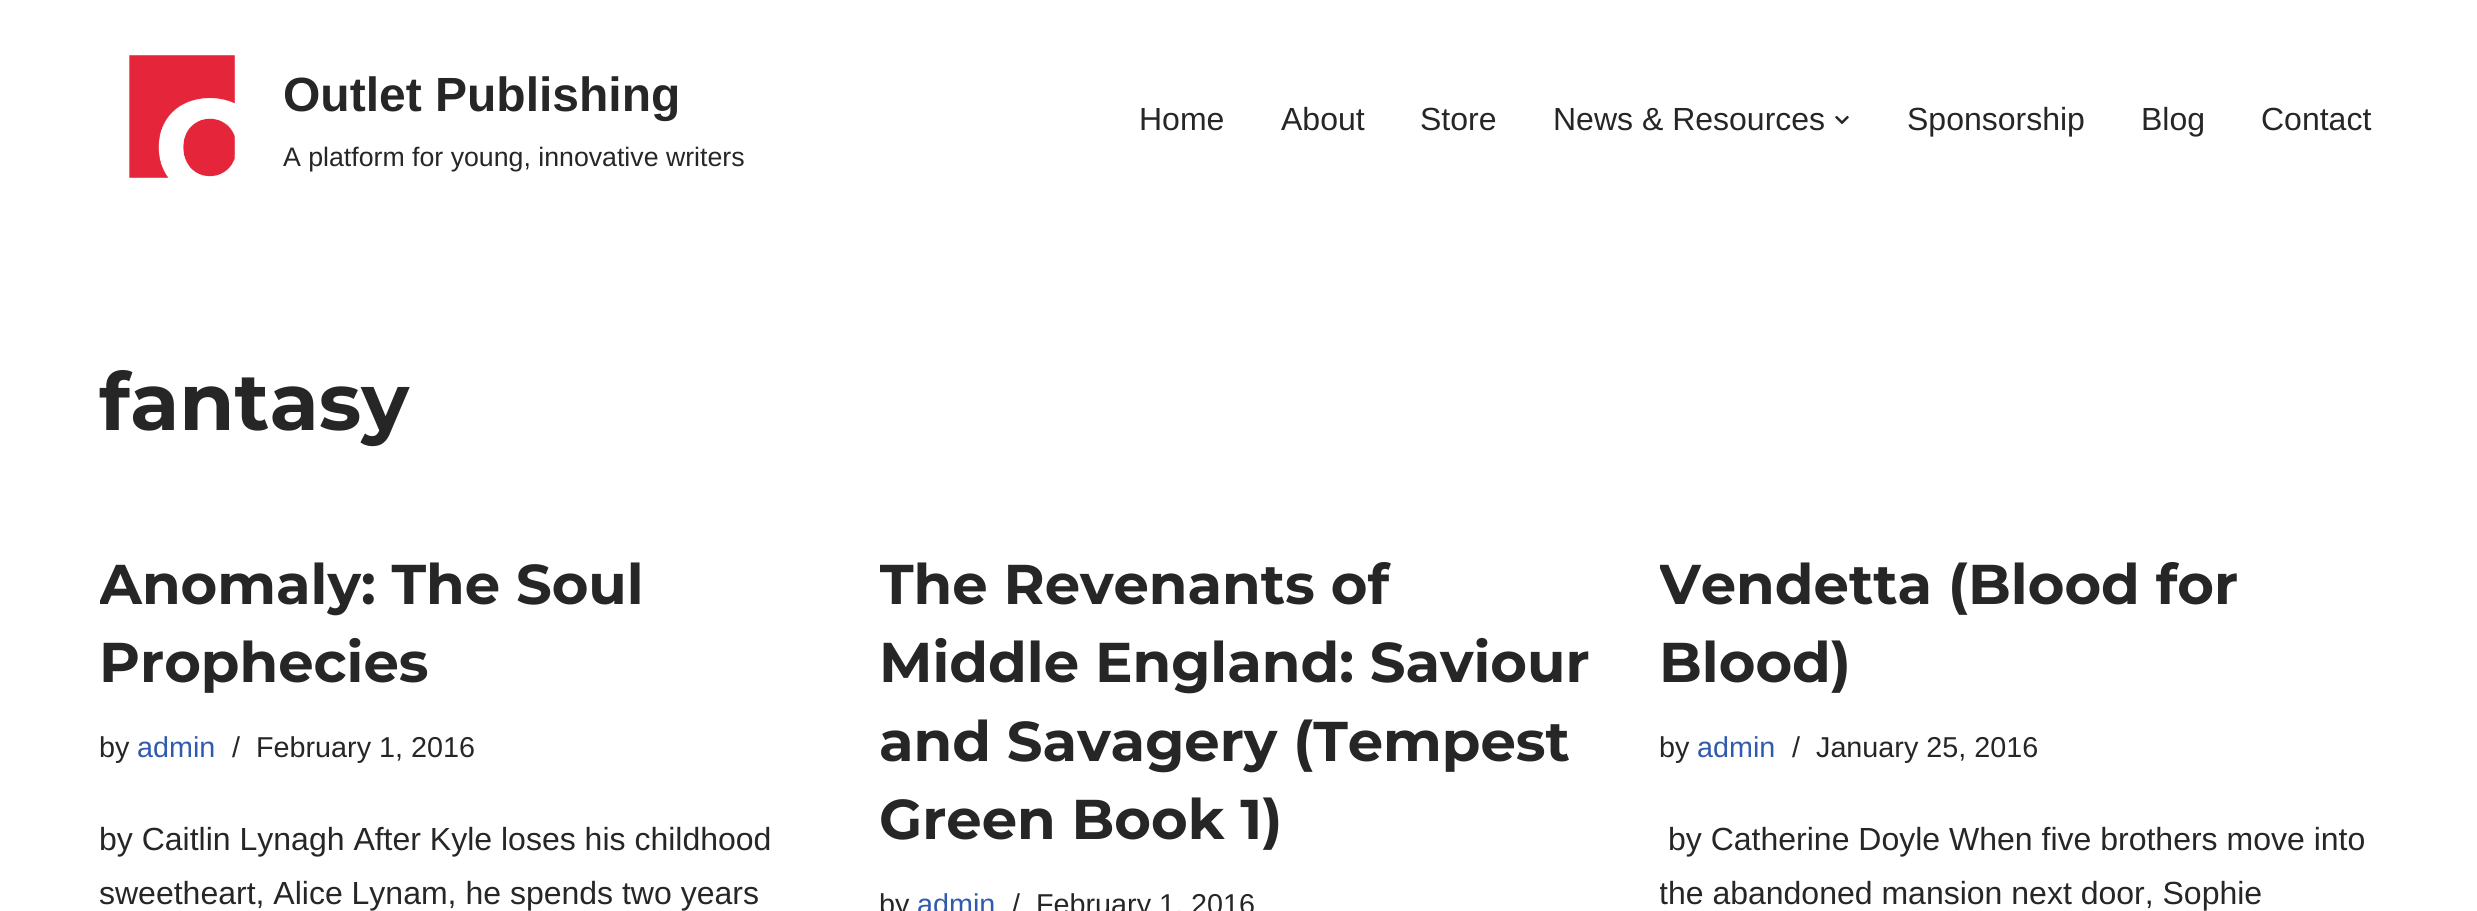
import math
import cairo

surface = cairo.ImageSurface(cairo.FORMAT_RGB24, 2477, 911)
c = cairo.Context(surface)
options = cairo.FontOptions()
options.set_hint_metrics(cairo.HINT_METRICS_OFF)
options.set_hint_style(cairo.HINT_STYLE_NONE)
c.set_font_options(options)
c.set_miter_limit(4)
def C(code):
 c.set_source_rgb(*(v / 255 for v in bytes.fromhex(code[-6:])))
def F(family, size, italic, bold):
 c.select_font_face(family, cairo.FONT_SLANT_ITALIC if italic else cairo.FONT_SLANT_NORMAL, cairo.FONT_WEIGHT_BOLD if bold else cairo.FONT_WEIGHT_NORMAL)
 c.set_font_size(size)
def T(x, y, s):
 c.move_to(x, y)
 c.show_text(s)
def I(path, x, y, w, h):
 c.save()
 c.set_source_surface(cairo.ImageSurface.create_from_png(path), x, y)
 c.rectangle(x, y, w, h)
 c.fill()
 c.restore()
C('ffffff')
c.paint()
I('1.png',129,55,106,123)
F('Liberation Sans',48,0,1)
C('272626')
T(283,111,'Outlet Publishing')
F('Liberation Sans',26.7,0,0)
T(283,166,'A platform for young, innovative writers')
F('Liberation Sans',32,0,0)
T(1139,130,'Home')
T(1281,130,'About')
T(1420,130,'Store')
T(1553,130,'News & Resources')
I('2.png',1835,115,14,10)
T(1907,130,'Sponsorship')
T(2141,130,'Blog')
T(2261,130,'Contact')
F('Montserrat',80,0,1)
T(99,430,'fantasy')
c.save()
c.rectangle(100,506,720,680)
c.clip()
F('Montserrat',56,0,1)
T(99,604,'Anomaly: The Soul')
c.restore()
F('Montserrat',56,0,1)
T(99,682,'Prophecies')
F('Liberation Sans',28.75,0,0)
T(99,757,'by')
C('2f5aae')
T(137,757,'admin')
C('272626')
T(232,757,'/')
T(256,757,'February 1, 2016')
F('Liberation Sans',32,0,0)
T(99,850,'by Caitlin Lynagh After Kyle loses his childhood')
T(99,904,'sweetheart, Alice Lynam, he spends two years')
c.save()
c.rectangle(880,506,720,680)
c.clip()
F('Montserrat',56,0,1)
T(879,604,'The Revenants of')
c.restore()
F('Montserrat',56,0,1)
T(879,682,'Middle England: Saviour')
T(879,761,'and Savagery (Tempest')
T(879,839,'Green Book 1)')
F('Liberation Sans',28.75,0,0)
T(879,914,'by')
C('2f5aae')
T(917,914,'admin')
C('272626')
T(1012,914,'/')
T(1036,914,'February 1, 2016')
c.save()
c.rectangle(1660,506,720,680)
c.clip()
F('Montserrat',56,0,1)
T(1659,604,'Vendetta (Blood for')
c.restore()
F('Montserrat',56,0,1)
T(1659,682,'Blood)')
F('Liberation Sans',28.75,0,0)
T(1659,757,'by')
C('2f5aae')
T(1697,757,'admin')
C('272626')
T(1792,757,'/')
T(1816,757,'January 25, 2016')
F('Liberation Sans',32,0,0)
T(1668,850,'by Catherine Doyle When five brothers move into')
c.save()
c.rectangle(1660,506,720,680)
c.clip()
T(1659,904,'the abandoned mansion next door, Sophie')
c.restore()
surface.write_to_png('o.png')
